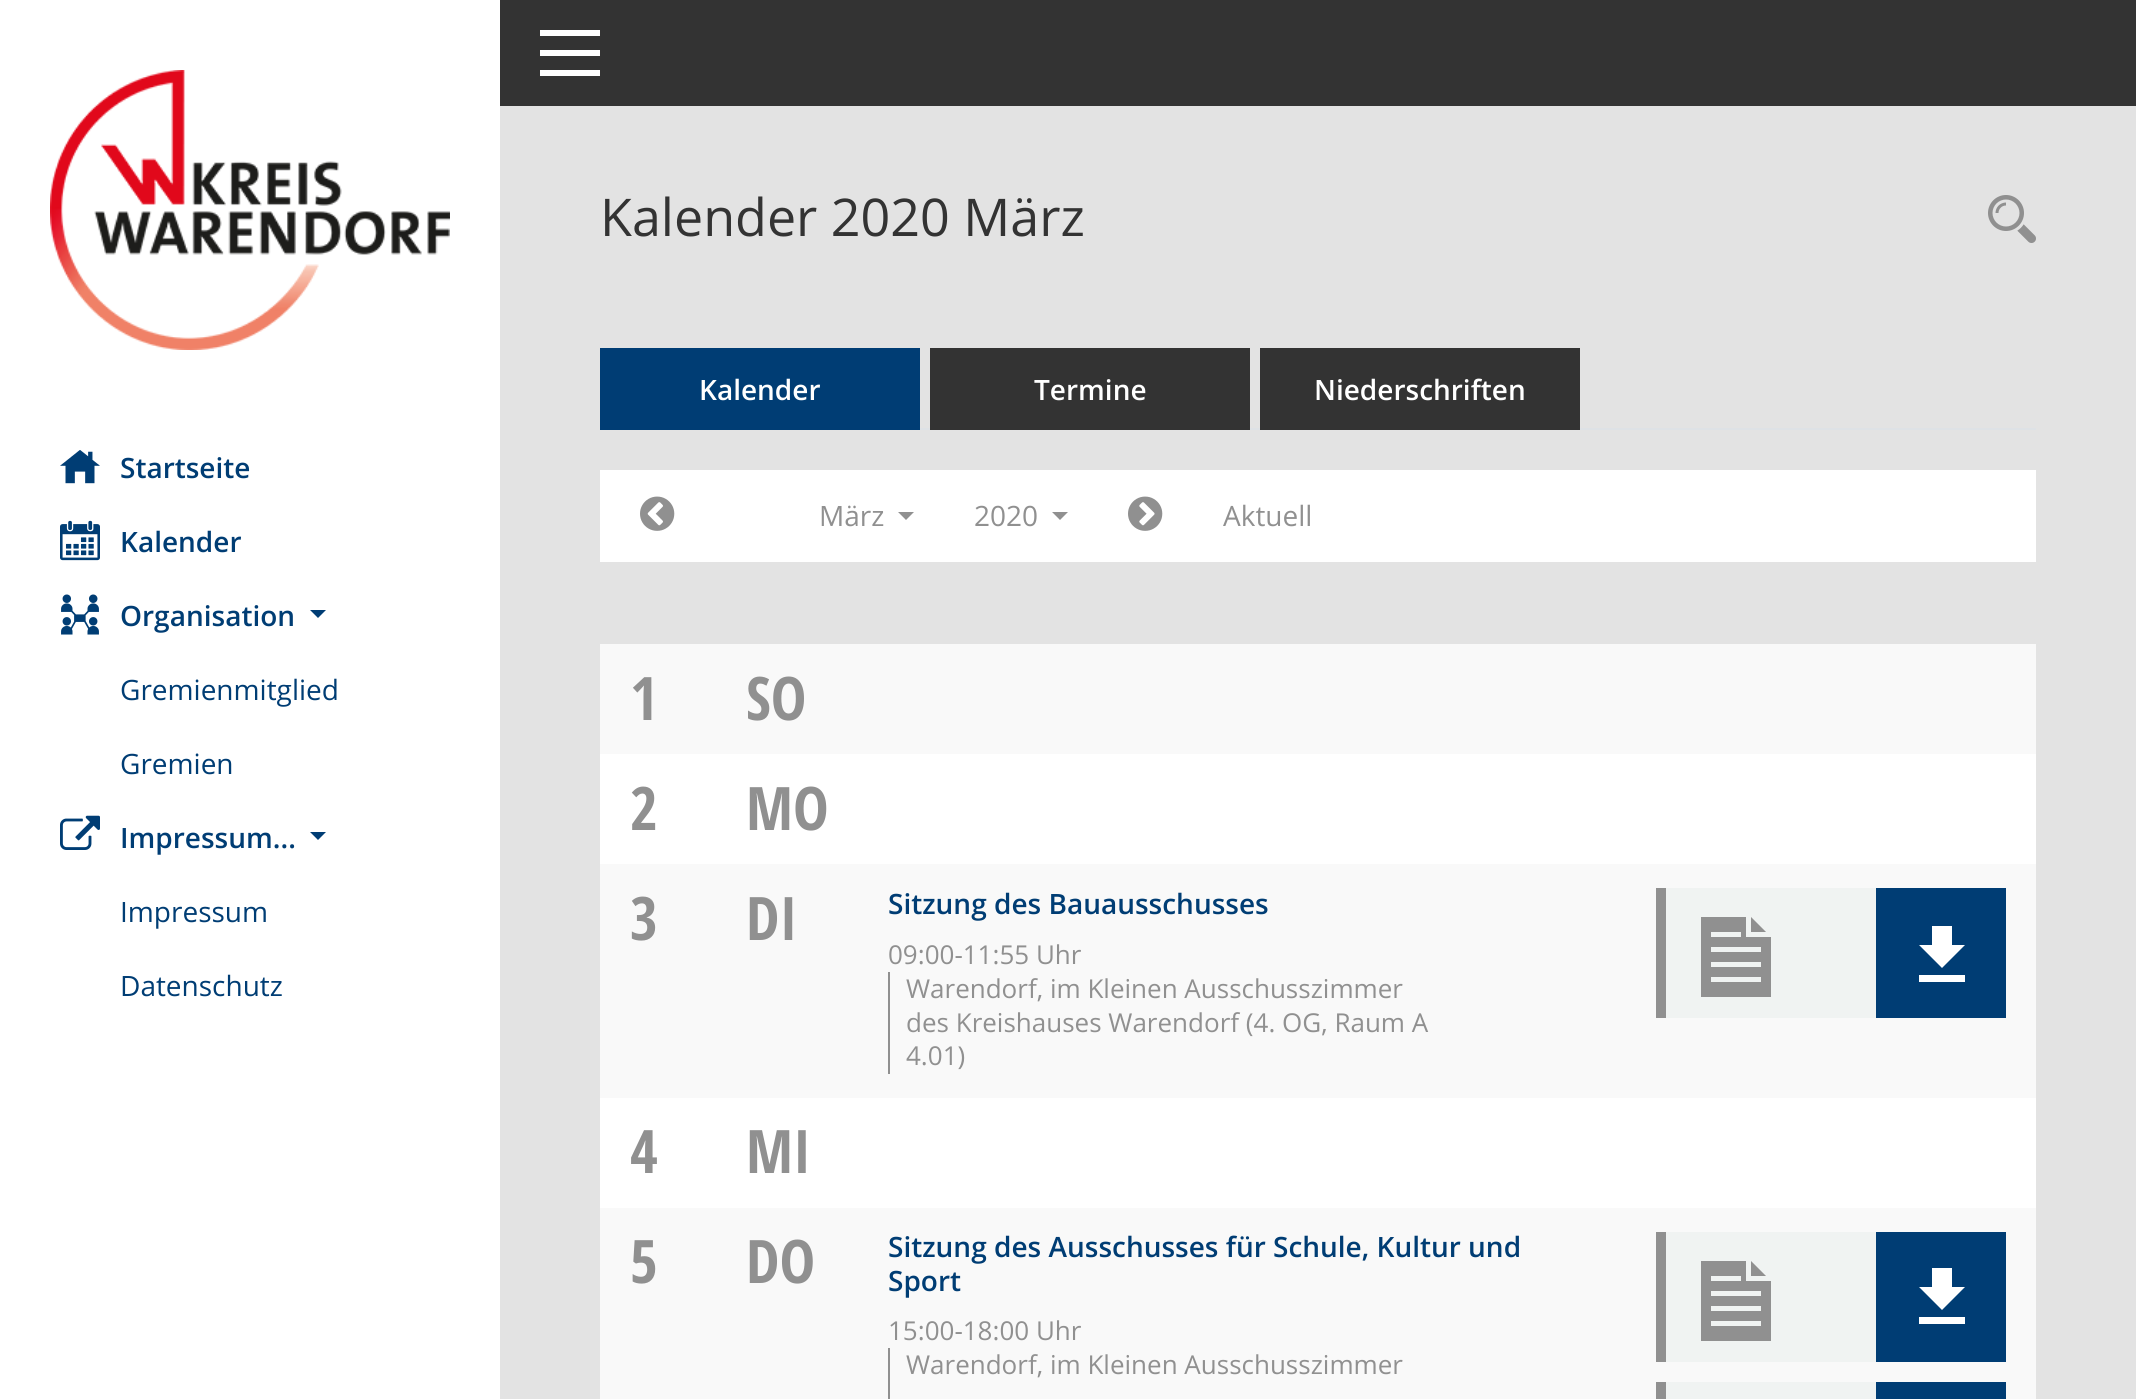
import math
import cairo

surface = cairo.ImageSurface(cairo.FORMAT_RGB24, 2136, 1399)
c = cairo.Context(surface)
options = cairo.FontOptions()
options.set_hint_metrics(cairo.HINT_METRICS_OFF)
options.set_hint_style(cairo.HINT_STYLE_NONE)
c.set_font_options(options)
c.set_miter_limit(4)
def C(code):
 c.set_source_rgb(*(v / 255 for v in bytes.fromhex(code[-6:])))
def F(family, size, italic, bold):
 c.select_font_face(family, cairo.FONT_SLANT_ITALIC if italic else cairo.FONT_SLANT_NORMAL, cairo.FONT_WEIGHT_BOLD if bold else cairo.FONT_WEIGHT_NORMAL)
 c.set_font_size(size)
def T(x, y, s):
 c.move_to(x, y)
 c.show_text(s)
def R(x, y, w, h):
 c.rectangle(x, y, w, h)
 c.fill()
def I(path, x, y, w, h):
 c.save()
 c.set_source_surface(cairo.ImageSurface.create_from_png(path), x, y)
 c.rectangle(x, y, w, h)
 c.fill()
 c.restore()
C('e3e3e3')
c.paint()
C('ffffff')
R(0,0,500,1399)
I('1.png',50,70,400,280)
I('2.png',60,450,40,34)
F('Open Sans SemiBold',28,0,0)
C('003d74')
T(120,478,'Startseite')
I('3.png',60,520,40,41)
T(120,552,'Kalender')
I('4.png',61,594,38,41)
T(120,626,'Organisation')
c.new_path()
c.move_to(310,610)
c.line_to(326,610)
c.line_to(318,618)
c.close_path()
c.fill()
F('Open Sans',28,0,0)
T(120,700,'Gremienmitglied')
T(120,774,'Gremien')
I('5.png',60,815,40,35)
F('Open Sans SemiBold',28,0,0)
T(120,848,'Impressum...')
c.new_path()
c.move_to(310,832)
c.line_to(326,832)
c.line_to(318,840)
c.close_path()
c.fill()
F('Open Sans',28,0,0)
T(120,922,'Impressum')
T(120,996,'Datenschutz')
C('333333')
R(500,0,1636,106)
C('ffffff')
R(540,30,60,6)
R(540,50,60,6)
R(540,70,60,6)
F('Open Sans',52,0,0)
C('333333')
T(600,236,'Kalender 2020 März')
I('6.png',1988,195,48,48)
C('dee2e6')
R(920,428,1116,2)
C('003d74')
R(600,348,320,82)
F('Open Sans SemiBold',28,0,0)
C('ffffff')
T(699,400,'Kalender')
C('333333')
R(930,348,320,82)
C('ffffff')
T(1034,400,'Termine')
C('333333')
R(1260,348,320,82)
C('ffffff')
T(1314,400,'Niederschriften')
R(600,470,1436,92)
I('7.png',640,496,35,35)
F('Open Sans',28,0,0)
C('909090')
T(819,526,'März')
c.new_path()
c.move_to(898,512)
c.line_to(914,512)
c.line_to(906,520)
c.close_path()
c.fill()
T(974,526,'2020')
c.new_path()
c.move_to(1052,512)
c.line_to(1068,512)
c.line_to(1060,520)
c.close_path()
c.fill()
I('8.png',1128,496,35,35)
T(1223,526,'Aktuell')
C('ffffff')
R(600,754,1436,454)
C('f9f9f9')
R(600,644,1436,110)
F('Open Sans Condensed',60,0,1)
C('909090')
T(630,720,'1')
T(746,720,'SO')
T(630,830,'2')
T(746,830,'MO')
C('f9f9f9')
R(600,864,1436,234)
C('909090')
T(630,940,'3')
T(746,940,'DI')
F('Open Sans SemiBold',28,0,0)
C('003d74')
T(888,914,'Sitzung des Bauausschusses')
F('Open Sans',26,0,0)
C('909090')
T(888,964,'09:00-11:55 Uhr')
R(888,972,2,102)
T(906,998,'Warendorf, im Kleinen Ausschusszimmer')
T(906,1032,'des Kreishauses Warendorf (4. OG, Raum A')
T(906,1065,'4.01)')
C('f0f3f2')
R(1666,888,210,130)
C('909090')
R(1656,888,10,130)
c.new_path()
c.move_to(1766,932)
c.line_to(1751,932)
c.line_to(1751,917)
c.close_path()
c.move_to(1771,937)
c.line_to(1771,997)
c.line_to(1701,997)
c.line_to(1701,917)
c.line_to(1746,917)
c.line_to(1746,937)
c.close_path()
c.move_to(1711,937)
c.line_to(1741,937)
c.line_to(1741,932)
c.line_to(1711,932)
c.close_path()
c.move_to(1761,977)
c.line_to(1711,977)
c.line_to(1711,982)
c.line_to(1761,982)
c.close_path()
c.move_to(1761,962)
c.line_to(1711,962)
c.line_to(1711,967)
c.line_to(1761,967)
c.close_path()
c.move_to(1761,947)
c.line_to(1711,947)
c.line_to(1711,952)
c.line_to(1761,952)
c.close_path()
c.fill()
C('003d74')
R(1876,888,130,130)
C('ffffff')
c.new_path()
c.move_to(1965,945)
c.line_to(1952,945)
c.line_to(1952,926)
c.line_to(1932,926)
c.line_to(1932,945)
c.line_to(1919,945)
c.line_to(1942,968)
c.close_path()
c.move_to(1919,975)
c.line_to(1919,982)
c.line_to(1965,982)
c.line_to(1965,975)
c.close_path()
c.fill()
F('Open Sans Condensed',60,0,1)
C('909090')
T(630,1173,'4')
T(746,1173,'MI')
C('f9f9f9')
R(600,1208,1436,191)
C('909090')
T(630,1283,'5')
T(746,1283,'DO')
F('Open Sans SemiBold',28,0,0)
C('003d74')
T(888,1257,'Sitzung des Ausschusses für Schule, Kultur und')
T(888,1291,'Sport')
F('Open Sans',26,0,0)
C('909090')
T(888,1340,'15:00-18:00 Uhr')
R(888,1348,2,51)
T(906,1374,'Warendorf, im Kleinen Ausschusszimmer')
C('f0f3f2')
R(1666,1232,210,130)
C('909090')
R(1656,1232,10,130)
c.new_path()
c.move_to(1766,1276)
c.line_to(1751,1276)
c.line_to(1751,1261)
c.close_path()
c.move_to(1771,1281)
c.line_to(1771,1341)
c.line_to(1701,1341)
c.line_to(1701,1261)
c.line_to(1746,1261)
c.line_to(1746,1281)
c.close_path()
c.move_to(1711,1281)
c.line_to(1741,1281)
c.line_to(1741,1276)
c.line_to(1711,1276)
c.close_path()
c.move_to(1761,1321)
c.line_to(1711,1321)
c.line_to(1711,1326)
c.line_to(1761,1326)
c.close_path()
c.move_to(1761,1306)
c.line_to(1711,1306)
c.line_to(1711,1311)
c.line_to(1761,1311)
c.close_path()
c.move_to(1761,1291)
c.line_to(1711,1291)
c.line_to(1711,1296)
c.line_to(1761,1296)
c.close_path()
c.fill()
C('003d74')
R(1876,1232,130,130)
C('ffffff')
c.new_path()
c.move_to(1965,1287)
c.line_to(1952,1287)
c.line_to(1952,1268)
c.line_to(1932,1268)
c.line_to(1932,1287)
c.line_to(1919,1287)
c.line_to(1942,1310)
c.close_path()
c.move_to(1919,1317)
c.line_to(1919,1324)
c.line_to(1965,1324)
c.line_to(1965,1317)
c.close_path()
c.fill()
C('f0f3f2')
R(1666,1382,210,17)
C('909090')
R(1656,1382,10,17)
C('003d74')
R(1876,1382,130,17)
surface.write_to_png('o.png')
